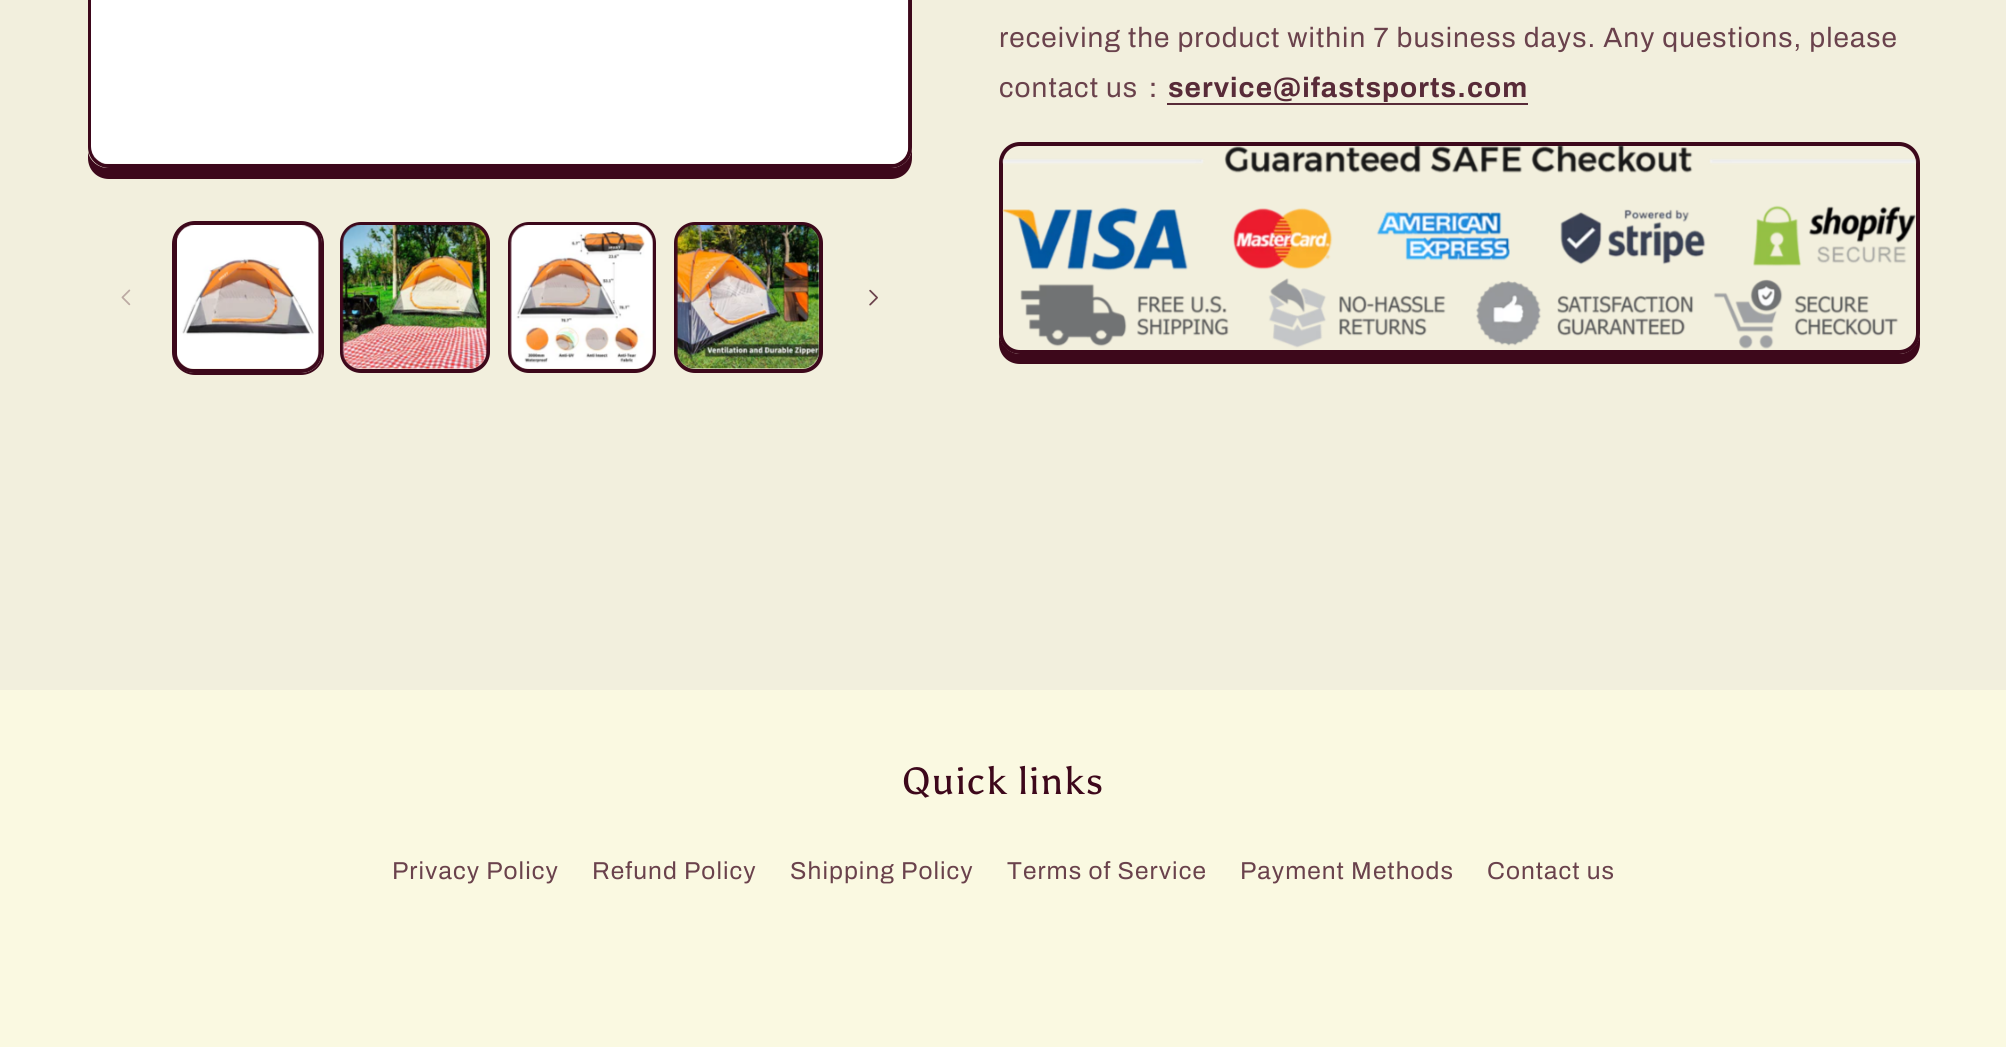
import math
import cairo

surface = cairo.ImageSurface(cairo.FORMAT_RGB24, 2006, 1047)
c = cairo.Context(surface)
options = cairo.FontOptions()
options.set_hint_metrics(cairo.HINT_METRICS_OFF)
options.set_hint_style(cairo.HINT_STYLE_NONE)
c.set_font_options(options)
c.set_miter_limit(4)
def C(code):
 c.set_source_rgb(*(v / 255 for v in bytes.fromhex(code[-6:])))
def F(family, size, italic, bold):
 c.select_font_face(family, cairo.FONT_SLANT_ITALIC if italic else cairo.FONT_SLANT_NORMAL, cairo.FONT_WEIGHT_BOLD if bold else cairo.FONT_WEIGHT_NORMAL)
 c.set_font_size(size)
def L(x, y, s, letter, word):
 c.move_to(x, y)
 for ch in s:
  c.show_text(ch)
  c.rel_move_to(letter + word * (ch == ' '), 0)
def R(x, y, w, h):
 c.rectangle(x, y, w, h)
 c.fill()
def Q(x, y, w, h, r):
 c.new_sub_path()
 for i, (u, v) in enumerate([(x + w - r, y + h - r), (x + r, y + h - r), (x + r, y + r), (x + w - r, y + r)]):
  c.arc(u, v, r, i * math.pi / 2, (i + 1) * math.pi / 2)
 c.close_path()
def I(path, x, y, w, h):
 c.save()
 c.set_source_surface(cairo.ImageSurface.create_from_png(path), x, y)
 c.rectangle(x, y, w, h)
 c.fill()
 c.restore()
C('f2efdd')
c.paint()
C('3d081b')
c.new_path()
c.move_to(88,152)
c.line_to(88,158)
c.curve_to(88,170,97,179,109,179)
c.line_to(891,179)
c.curve_to(903,179,912,170,912,158)
c.line_to(912,-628)
c.line_to(912,147)
c.curve_to(912,159,902,168,891,168)
c.line_to(108,168)
c.curve_to(98,168,90,161,88,152)
c.close_path()
c.fill()
C('f2efdd')
Q(90,-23,820,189,19)
c.fill_preserve()
C('3d081b')
c.set_line_width(4)
c.stroke()
I('1.png',91,0,818,164)
I('2.png',121,289,10,17)
Q(173,222,150,152,22)
c.set_line_width(2)
c.stroke()
Q(175,224,145,147,19)
c.set_line_width(4)
c.stroke()
I('3.png',177,225,142,144)
Q(342,224,146,147,19)
c.stroke()
I('4.png',342,225,145,144)
Q(510,224,144,147,19)
c.stroke()
I('5.png',510,225,143,144)
Q(676,224,145,147,19)
c.stroke()
I('6.png',676,225,144,144)
I('7.png',869,289,9,17)
F('Archivo',28,0,0)
C('6a424c')
L(999,47,'receiving the product within 7 business days. Any questions, please',1.05,0)
L(999,97,'contact us',1.05,0)
F('WenQuanYi Zen Hei Medium',28,0,0)
L(1139,97,'：',1.05,0)
F('Archivo',28,0,1)
C('582b38')
L(1168,97,'service@ifastsports.com',1.05,0)
R(1167,103,361,2)
C('3d081b')
c.new_path()
c.move_to(999,170)
c.line_to(999,343)
c.curve_to(999,355,1008,364,1020,364)
c.line_to(1899,364)
c.curve_to(1911,364,1920,355,1920,343)
c.line_to(1920,170)
c.line_to(1920,332)
c.curve_to(1920,344,1910,354,1899,354)
c.line_to(1020,354)
c.curve_to(1009,354,999,344,999,332)
c.close_path()
c.fill()
Q(1001,144,917,208,19)
c.stroke()
I('8.png',1002,145,915,204)
C('faf9e1')
R(0,690,2006,357)
F('Asul',37.75,0,0)
C('3d081b')
L(902,794,'Quick links',1.25,0)
F('Archivo',24.5,0,0)
C('6a424c')
L(392,879,'Privacy Policy',1.05,0)
L(592,879,'Refund Policy',1.05,0)
L(790,879,'Shipping Policy',1.05,0)
L(1007,879,'Terms of Service',1.05,0)
L(1240,879,'Payment Methods',1.05,0)
L(1487,879,'Contact us',1.05,0)
surface.write_to_png('o.png')
